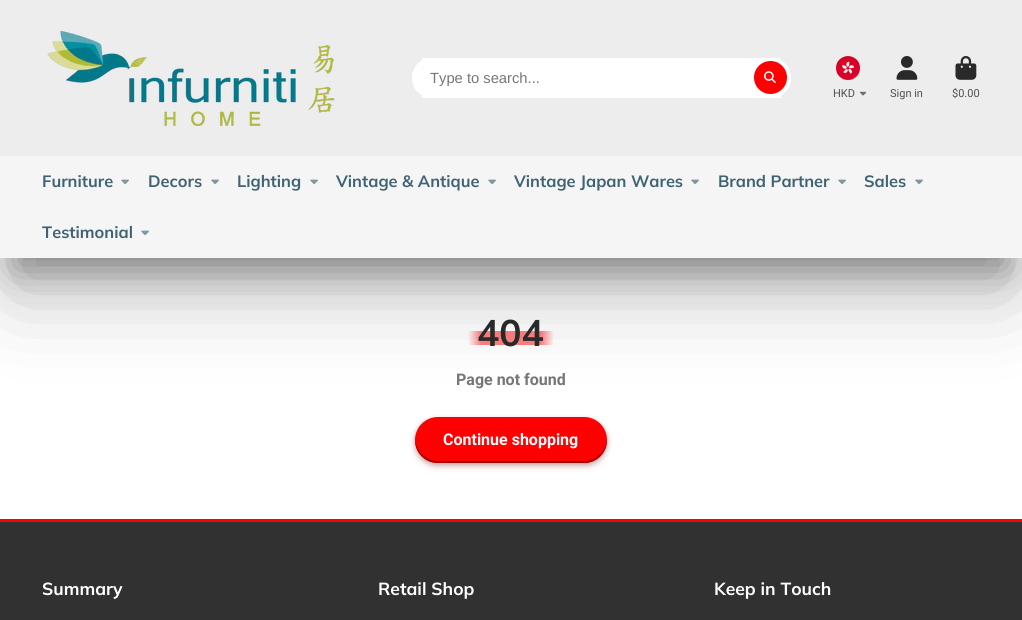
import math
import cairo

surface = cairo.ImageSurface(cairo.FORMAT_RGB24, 1022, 620)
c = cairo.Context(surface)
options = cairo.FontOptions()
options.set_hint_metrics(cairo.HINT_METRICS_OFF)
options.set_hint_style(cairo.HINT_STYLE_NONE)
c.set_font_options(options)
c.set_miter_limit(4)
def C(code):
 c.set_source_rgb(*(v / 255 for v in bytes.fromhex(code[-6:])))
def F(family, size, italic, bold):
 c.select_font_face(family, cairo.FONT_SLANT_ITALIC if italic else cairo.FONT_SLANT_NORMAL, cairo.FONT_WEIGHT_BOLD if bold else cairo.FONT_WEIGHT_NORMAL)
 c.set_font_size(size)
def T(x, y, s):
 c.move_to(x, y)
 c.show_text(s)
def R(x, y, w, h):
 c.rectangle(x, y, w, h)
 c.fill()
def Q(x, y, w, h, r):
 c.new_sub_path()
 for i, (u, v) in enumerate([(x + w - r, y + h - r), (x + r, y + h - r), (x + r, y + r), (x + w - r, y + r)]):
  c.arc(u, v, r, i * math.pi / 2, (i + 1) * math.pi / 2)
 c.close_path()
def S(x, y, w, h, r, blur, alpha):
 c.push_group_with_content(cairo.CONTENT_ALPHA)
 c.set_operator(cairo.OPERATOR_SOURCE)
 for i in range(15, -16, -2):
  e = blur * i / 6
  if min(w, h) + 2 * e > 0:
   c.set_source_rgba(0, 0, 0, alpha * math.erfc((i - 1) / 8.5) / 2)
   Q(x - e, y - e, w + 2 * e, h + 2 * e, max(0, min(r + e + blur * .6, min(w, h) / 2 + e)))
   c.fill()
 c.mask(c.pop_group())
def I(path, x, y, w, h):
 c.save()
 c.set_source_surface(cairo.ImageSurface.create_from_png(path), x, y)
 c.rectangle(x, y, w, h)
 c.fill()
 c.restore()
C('ffffff')
c.paint()
C('1c1c1c')
S(14,40,994,230,0,19,.4)
gradient = cairo.LinearGradient(468,338,554,338)
gradient.add_color_stop_rgba(0,1,1,1,1)
gradient.add_color_stop_rgba(.15,1,0.502,0.502,1)
gradient.add_color_stop_rgba(.85,1,0.502,0.502,1)
gradient.add_color_stop_rgba(1,1,1,1,1)
c.set_source(gradient)
R(468,331,86,14)
C('660000')
S(417,424,188,41,20.5,5,.15)
S(415,419,192,46,23,2.5,.3)
C('ff0000')
Q(415,417,192,46,23)
c.fill()
C('1c1c1c')
S(14,58,994,230,0,44,.3)
C('ededed')
R(0,0,1022,156)
I('1.png',47,30,288,96)
C('ffffff')
Q(412,58,379,40,20)
c.fill()
R(422,58,359,40)
Q(412,58,379,39,19.5)
c.fill()
F('Liberation Sans',14.75,0,0)
C('767676')
T(430,83,'Type to search...')
C('ff0000')
c.new_path()
c.arc(770.5,77.5,16.5,0,2 * math.pi)
c.fill()
I('2.png',764,71,12,12)
I('3.png',836,56,24,24)
F('Roboto',11,0,0)
C('505050')
T(833,97,'HKD')
I('4.png',859,91,8,5)
I('5.png',896,56,22,24)
T(890,97,'Sign in')
I('6.png',955,56,22,24)
T(952,97,'$0.00')
C('f5f5f5')
R(0,156,1022,102)
F('Muli',16.4,0,1)
C('3f6372')
T(42,187,'Furniture')
I('7.png',121,179,8,6)
T(148,187,'Decors')
I('7.png',211,179,8,6)
T(237,187,'Lighting')
I('7.png',310,179,8,6)
T(336,187,'Vintage & Antique')
I('7.png',488,179,8,6)
T(514,187,'Vintage Japan Wares')
I('7.png',691,179,8,6)
T(718,187,'Brand Partner')
I('7.png',838,179,8,6)
T(864,187,'Sales')
I('7.png',915,179,8,6)
T(42,238,'Testimonial')
I('7.png',141,230,8,6)
F('Muli',37,0,1)
C('292929')
T(477,346,'404')
F('Roboto',16,0,1)
C('767676')
T(456,385,'Page not found')
C('a30000')
c.new_path()
c.move_to(415,439)
c.line_to(415,440)
c.curve_to(415,453,425,463,438,463)
c.line_to(584,463)
c.curve_to(597,463,607,453,607,440)
c.line_to(607,439)
c.curve_to(606,451,597,461,584,461)
c.line_to(438,461)
c.curve_to(425,461,416,451,415,439)
c.close_path()
c.fill()
C('ffffff')
T(443,445,'Continue shopping')
C('313131')
R(0,522,1022,98)
C('ff0000')
R(0,519,1022,3)
F('Muli',17.5,0,1)
C('ffffff')
T(42,595,'Summary')
T(378,595,'Retail Shop')
T(714,595,'Keep in Touch')
surface.write_to_png('o.png')
